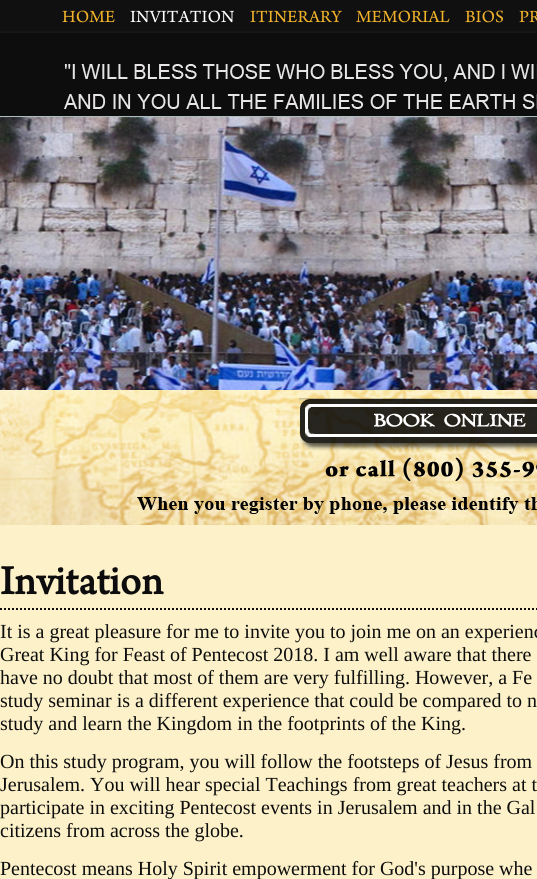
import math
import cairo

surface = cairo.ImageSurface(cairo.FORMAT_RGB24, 537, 879)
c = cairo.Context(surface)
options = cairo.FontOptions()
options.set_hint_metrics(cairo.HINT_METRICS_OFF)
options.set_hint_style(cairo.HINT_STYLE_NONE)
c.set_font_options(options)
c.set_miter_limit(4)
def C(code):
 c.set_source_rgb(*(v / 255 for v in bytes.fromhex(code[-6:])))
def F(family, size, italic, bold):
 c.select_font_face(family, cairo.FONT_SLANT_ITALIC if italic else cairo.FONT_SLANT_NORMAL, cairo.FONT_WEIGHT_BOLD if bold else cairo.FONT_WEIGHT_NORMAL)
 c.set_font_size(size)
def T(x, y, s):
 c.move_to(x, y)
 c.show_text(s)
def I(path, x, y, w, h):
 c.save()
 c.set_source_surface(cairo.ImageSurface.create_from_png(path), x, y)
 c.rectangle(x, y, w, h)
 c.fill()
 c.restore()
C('fcf1c9')
c.paint()
I('1.png',0,0,537,117)
F('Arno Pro',18,0,0)
C('f0b22b')
T(62,22,'HOME')
C('ffffff')
T(130,22,'INVITATION')
C('f0b22b')
T(250,22,'ITINERARY')
T(356,22,'MEMORIAL')
T(465,22,'BIOS')
T(519,22,'PR')
I('2.png',64,64,473,45)
I('3.png',0,117,537,273)
I('4.png',0,390,537,135)
I('5.png',137,398,400,116)
c.new_path()
c.move_to(0,609)
c.line_to(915,609)
C('0d0d0d')
c.set_dash([2,2])
c.stroke()
F('Arno Pro',43,0,1)
T(0,594,'Invitation')
F('Liberation Serif',20,0,0)
T(0,638,'It is a great pleasure for me to invite you to join me on an experienc')
T(0,661,'Great King for Feast of Pentecost 2018. I am well aware that there')
T(0,684,'have no doubt that most of them are very fulfilling. However, a Fe')
T(0,707,'study seminar is a different experience that could be compared to n')
T(0,730,'study and learn the Kingdom in the footprints of the King.')
T(0,768,'On this study program, you will follow the footsteps of Jesus from')
T(0,791,'Jerusalem. You will hear special Teachings from great teachers at t')
T(0,814,'participate in exciting Pentecost events in Jerusalem and in the Gal')
T(0,837,'citizens from across the globe.')
T(0,875,'Pentecost means Holy Spirit empowerment for God\'s purpose whe')
surface.write_to_png('o.png')
